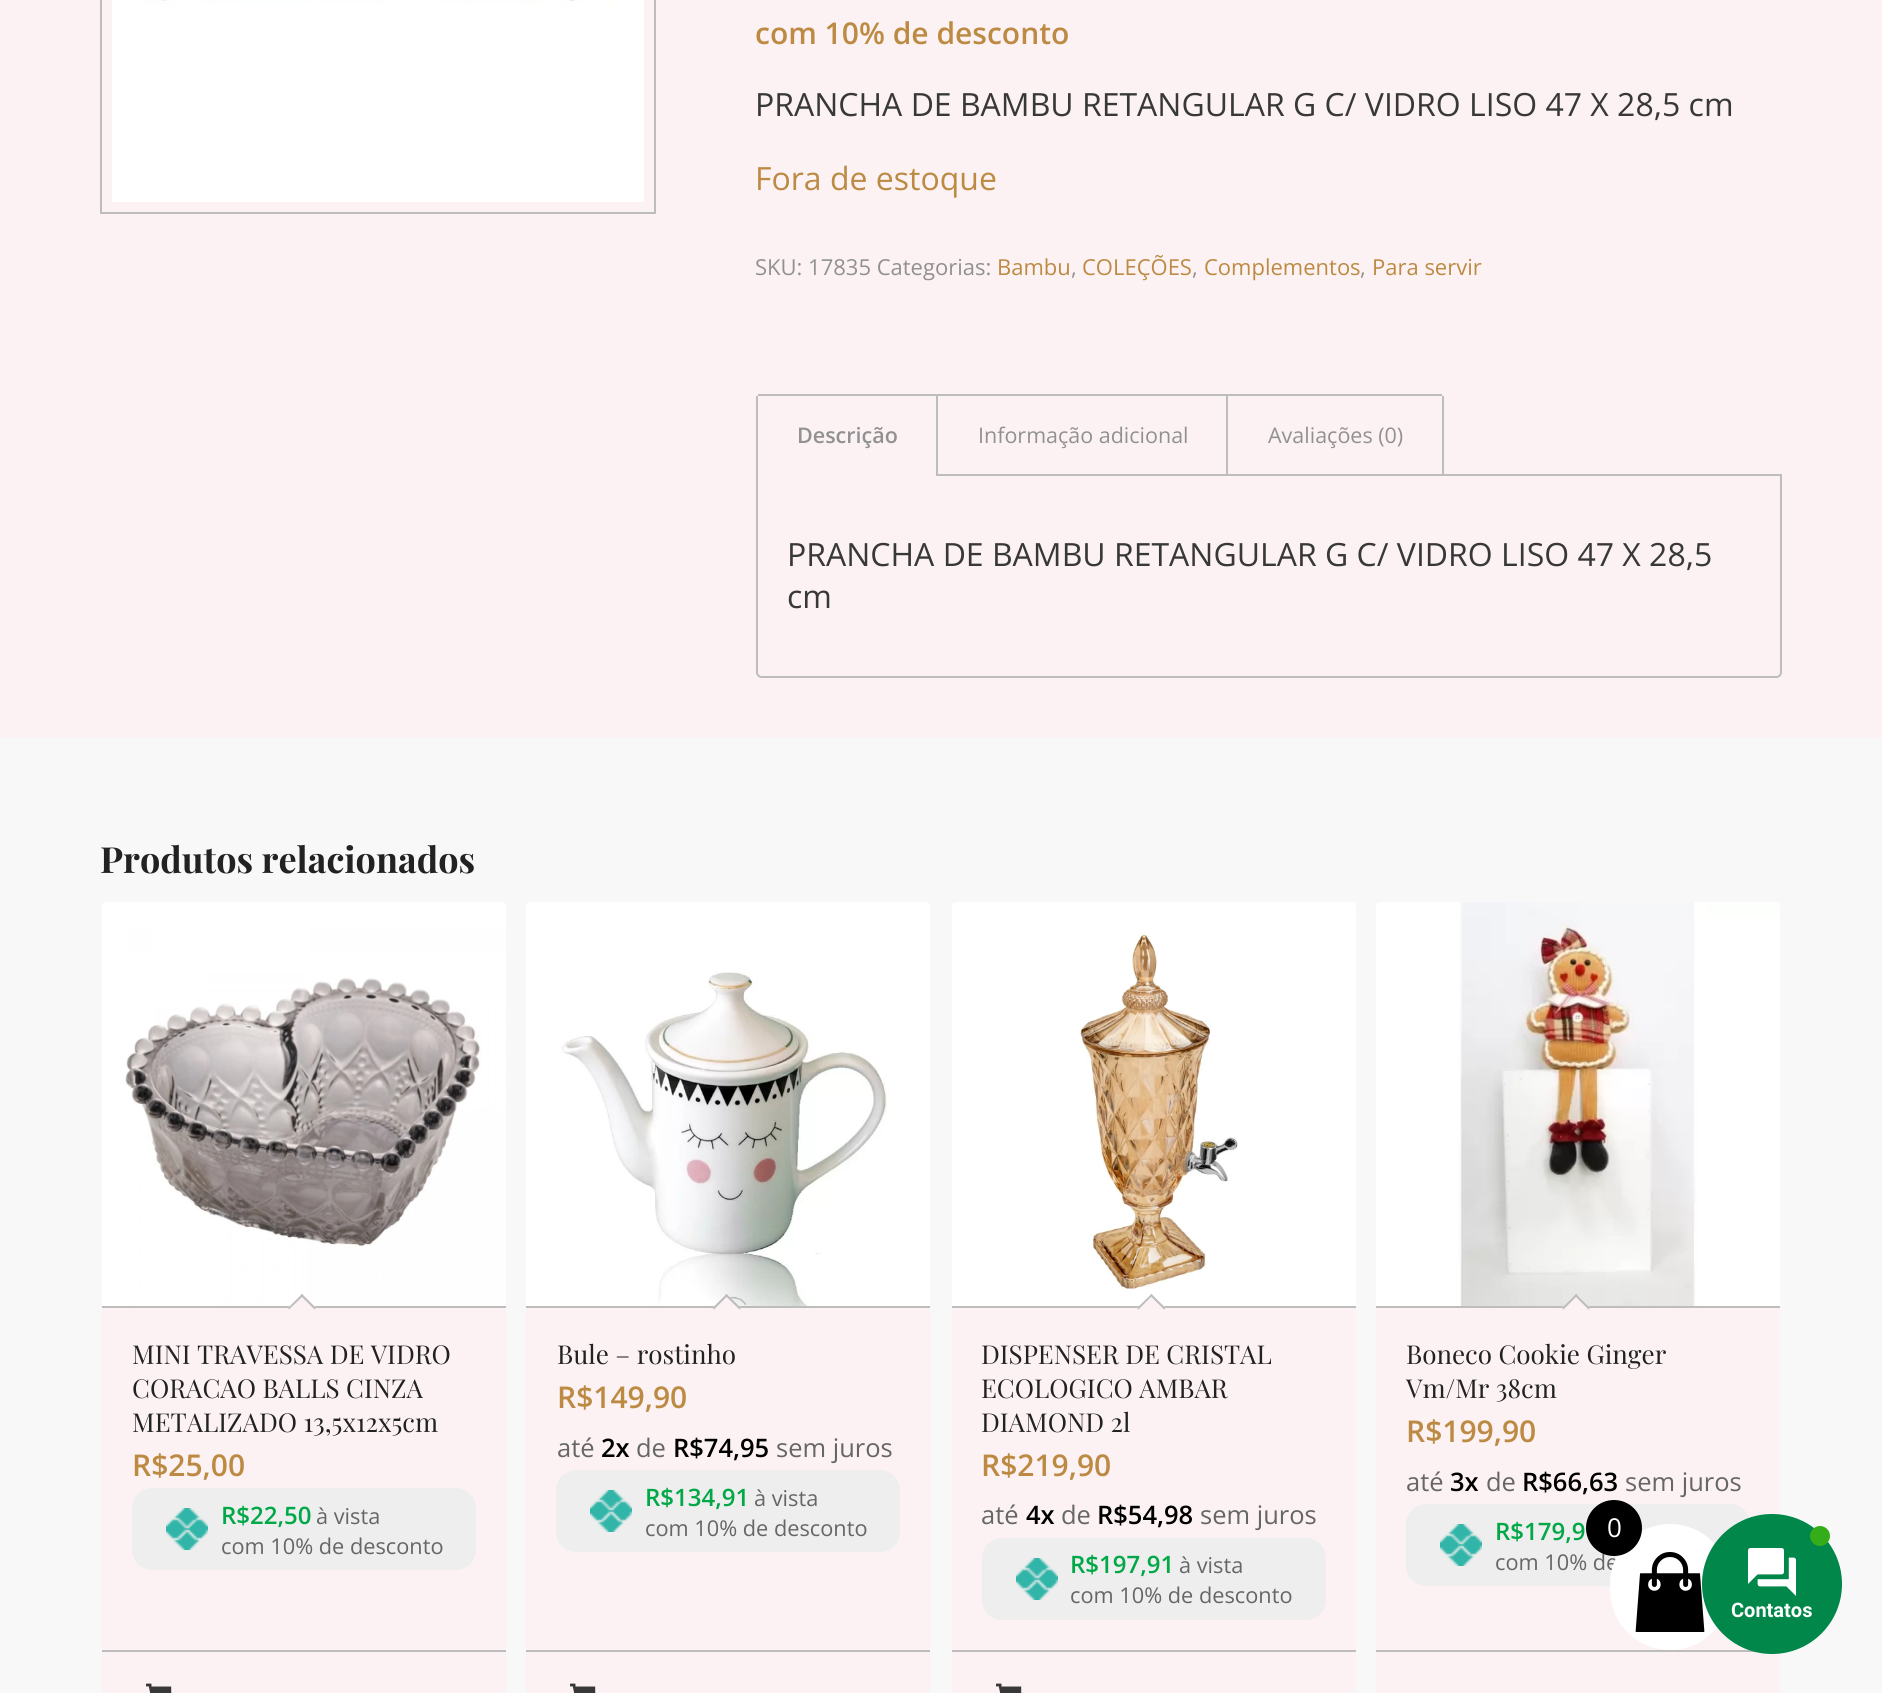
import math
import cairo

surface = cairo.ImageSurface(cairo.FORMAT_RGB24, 1882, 1693)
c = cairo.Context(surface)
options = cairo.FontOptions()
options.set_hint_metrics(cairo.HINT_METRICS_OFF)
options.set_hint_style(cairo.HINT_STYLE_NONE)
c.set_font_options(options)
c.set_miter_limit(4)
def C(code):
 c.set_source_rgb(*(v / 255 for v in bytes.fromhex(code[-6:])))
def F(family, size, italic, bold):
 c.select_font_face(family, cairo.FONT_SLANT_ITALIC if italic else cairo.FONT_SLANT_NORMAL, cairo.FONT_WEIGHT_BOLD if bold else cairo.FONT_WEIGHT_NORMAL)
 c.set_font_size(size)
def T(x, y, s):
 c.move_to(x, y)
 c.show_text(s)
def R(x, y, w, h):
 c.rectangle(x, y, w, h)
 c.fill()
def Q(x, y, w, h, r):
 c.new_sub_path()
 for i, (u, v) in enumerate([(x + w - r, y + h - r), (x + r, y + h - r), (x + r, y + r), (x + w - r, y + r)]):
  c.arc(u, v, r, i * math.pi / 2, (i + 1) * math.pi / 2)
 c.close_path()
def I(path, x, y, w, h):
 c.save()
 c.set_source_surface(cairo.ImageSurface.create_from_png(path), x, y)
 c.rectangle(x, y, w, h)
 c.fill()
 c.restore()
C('f8f8f8')
c.paint()
C('fcf2f3')
R(0,0,1882,738)
c.rectangle(101,-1,554,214)
C('bdbdbd')
c.stroke()
I('1.png',112,0,532,202)
F('Open Sans SemiBold',30,0,0)
C('bc8a43')
T(755,44,'com 10% de desconto')
F('Open Sans',32,0,0)
C('383838')
T(755,116,'PRANCHA DE BAMBU RETANGULAR G C/ VIDRO LISO 47 X 28,5 cm')
C('bc8a43')
T(755,190,'Fora de estoque')
F('Open Sans',22,0,0)
C('919191')
T(755,275,'SKU: 17835 Categorias:')
C('bc8a43')
T(997,275,'Bambu')
C('919191')
T(1071,275,',')
C('bc8a43')
T(1082,275,'COLEÇÕES')
C('919191')
T(1192,275,',')
C('bc8a43')
T(1204,275,'Complementos')
C('919191')
T(1360,275,',')
C('bc8a43')
T(1372,275,'Para servir')
c.new_path()
c.move_to(757,475)
c.line_to(1781,475)
c.line_to(1781,672)
c.curve_to(1781,675,1779,677,1776,677)
c.line_to(762,677)
c.curve_to(759,677,757,675,757,672)
c.close_path()
C('bdbdbd')
c.stroke()
C('fcf2f3')
R(756,474,180,2)
C('bdbdbd')
R(758,394,470,2)
R(936,394,2,82)
R(756,396,2,80)
F('Open Sans SemiBold',21.5,0,0)
C('919191')
T(797,443,'Descrição')
C('bdbdbd')
R(1226,394,2,82)
F('Open Sans',21.5,0,0)
C('919191')
T(978,443,'Informação adicional')
C('bdbdbd')
R(1226,394,216,2)
R(1442,396,2,80)
C('919191')
T(1268,443,'Avaliações (0)')
F('Open Sans',32,0,0)
C('383838')
T(787,566,'PRANCHA DE BAMBU RETANGULAR G C/ VIDRO LISO 47 X 28,5')
T(787,608,'cm')
F('Playfair Display',36,0,1)
C('222222')
T(100,873,'Produtos relacionados')
C('fcf2f3')
Q(101,901,406,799,5)
c.fill_preserve()
C('f8f8f8')
c.stroke()
I('2.png',102,902,404,404)
C('bdbdbd')
R(102,1306,404,2)
C('fcf2f3')
c.new_path()
c.move_to(302,1294)
c.line_to(316,1308)
c.line_to(302,1322.5)
c.line_to(288,1308)
c.close_path()
c.fill()
C('bdbdbd')
c.new_path()
c.move_to(302,1294)
c.line_to(316,1308)
c.line_to(314.5,1309.5)
c.line_to(300.5,1295.5)
c.close_path()
c.fill()
c.new_path()
c.move_to(302,1294)
c.line_to(303.5,1295.5)
c.line_to(289,1309.5)
c.line_to(288,1308)
c.close_path()
c.fill()
F('Playfair Display',26,0,0)
C('222222')
T(132,1364,'MINI TRAVESSA DE VIDRO')
T(132,1398,'CORACAO BALLS CINZA')
T(132,1432,'METALIZADO 13,5x12x5cm')
F('Open Sans SemiBold',30,0,0)
C('bc8a43')
T(132,1476,'R$25,00')
C('eeeeee')
Q(132,1488,344,82,20)
c.fill()
I('3.png',166,1508,42,42)
F('Open Sans SemiBold',24,0,0)
C('00a848')
T(221,1524,'R$22,50')
F('Open Sans',21.75,0,0)
C('666666')
T(316,1524,'à vista')
T(221,1554,'com 10% de desconto')
C('bdbdbd')
R(102,1650,404,2)
I('4.png',146,1683,26,10)
C('fcf2f3')
Q(525,901,406,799,5)
c.fill_preserve()
C('f8f8f8')
c.stroke()
I('5.png',526,902,404,404)
C('bdbdbd')
R(526,1306,404,2)
C('fcf2f3')
c.new_path()
c.move_to(726.5,1294)
c.line_to(741,1308)
c.line_to(726.5,1322.5)
c.line_to(712.5,1308)
c.close_path()
c.fill()
C('bdbdbd')
c.new_path()
c.move_to(726.5,1294)
c.line_to(741,1308)
c.line_to(739.5,1309.5)
c.line_to(725,1295.5)
c.close_path()
c.fill()
c.new_path()
c.move_to(726.5,1294)
c.line_to(728,1295.5)
c.line_to(714,1309.5)
c.line_to(712.5,1308)
c.close_path()
c.fill()
F('Playfair Display',26,0,0)
C('222222')
T(557,1364,'Bule – rostinho')
F('Open Sans SemiBold',30,0,0)
C('bc8a43')
T(557,1408,'R$149,90')
F('Open Sans',25.5,0,0)
C('666666')
T(557,1457,'até')
F('Open Sans SemiBold',25.5,0,0)
C('000000')
T(601,1457,'2x')
F('Open Sans',25.5,0,0)
C('666666')
T(636,1457,'de')
F('Open Sans SemiBold',25.5,0,0)
C('000000')
T(673,1457,'R$74,95')
F('Open Sans',25.5,0,0)
C('666666')
T(776,1457,'sem juros')
C('eeeeee')
Q(556,1470,344,82,20)
c.fill()
I('3.png',590,1490,42,42)
F('Open Sans SemiBold',24,0,0)
C('00a848')
T(645,1506,'R$134,91')
F('Open Sans',21.75,0,0)
C('666666')
T(754,1506,'à vista')
T(645,1536,'com 10% de desconto')
C('bdbdbd')
R(526,1650,404,2)
I('4.png',570,1683,26,10)
C('fcf2f3')
Q(951,901,406,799,5)
c.fill_preserve()
C('f8f8f8')
c.stroke()
I('6.png',952,902,404,404)
C('bdbdbd')
R(952,1306,404,2)
C('fcf2f3')
c.new_path()
c.move_to(1151.5,1294)
c.line_to(1165.5,1308)
c.line_to(1151.5,1322.5)
c.line_to(1137,1308)
c.close_path()
c.fill()
C('bdbdbd')
c.new_path()
c.move_to(1151.5,1294)
c.line_to(1165.5,1308)
c.line_to(1164,1309.5)
c.line_to(1150,1295.5)
c.close_path()
c.fill()
c.new_path()
c.move_to(1151.5,1294)
c.line_to(1152.5,1295.5)
c.line_to(1138.5,1309.5)
c.line_to(1137,1308)
c.close_path()
c.fill()
F('Playfair Display',26,0,0)
C('222222')
T(981,1364,'DISPENSER DE CRISTAL')
T(981,1398,'ECOLOGICO AMBAR')
T(981,1432,'DIAMOND 2l')
F('Open Sans SemiBold',30,0,0)
C('bc8a43')
T(981,1476,'R$219,90')
F('Open Sans',25.5,0,0)
C('666666')
T(981,1524,'até')
F('Open Sans SemiBold',25.5,0,0)
C('000000')
T(1026,1524,'4x')
F('Open Sans',25.5,0,0)
C('666666')
T(1061,1524,'de')
F('Open Sans SemiBold',25.5,0,0)
C('000000')
T(1097,1524,'R$54,98')
F('Open Sans',25.5,0,0)
C('666666')
T(1200,1524,'sem juros')
C('eeeeee')
Q(982,1538,344,82,20)
c.fill()
I('3.png',1016,1558,42,42)
F('Open Sans SemiBold',24,0,0)
C('00a848')
T(1070,1573,'R$197,91')
F('Open Sans',21.75,0,0)
C('666666')
T(1179,1573,'à vista')
T(1070,1603,'com 10% de desconto')
C('bdbdbd')
R(952,1650,404,2)
I('4.png',996,1683,26,10)
C('fcf2f3')
Q(1375,901,406,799,5)
c.fill_preserve()
C('f8f8f8')
c.stroke()
I('7.png',1376,902,404,404)
C('bdbdbd')
R(1376,1306,404,2)
C('fcf2f3')
c.new_path()
c.move_to(1576,1294)
c.line_to(1590,1308)
c.line_to(1576,1322.5)
c.line_to(1562,1308)
c.close_path()
c.fill()
C('bdbdbd')
c.new_path()
c.move_to(1576,1294)
c.line_to(1590,1308)
c.line_to(1588.5,1309.5)
c.line_to(1574.5,1295.5)
c.close_path()
c.fill()
c.new_path()
c.move_to(1576,1294)
c.line_to(1577.5,1295.5)
c.line_to(1563.5,1309.5)
c.line_to(1562,1308)
c.close_path()
c.fill()
F('Playfair Display',26,0,0)
C('222222')
T(1406,1364,'Boneco Cookie Ginger')
T(1406,1398,'Vm/Mr 38cm')
F('Open Sans SemiBold',30,0,0)
C('bc8a43')
T(1406,1442,'R$199,90')
F('Open Sans',25.5,0,0)
C('666666')
T(1406,1491,'até')
F('Open Sans SemiBold',25.5,0,0)
C('000000')
T(1450,1491,'3x')
F('Open Sans',25.5,0,0)
C('666666')
T(1486,1491,'de')
F('Open Sans SemiBold',25.5,0,0)
C('000000')
T(1522,1491,'R$66,63')
F('Open Sans',25.5,0,0)
C('666666')
T(1625,1491,'sem juros')
C('eeeeee')
Q(1406,1504,344,82,20)
c.fill()
I('3.png',1440,1524,42,42)
F('Open Sans SemiBold',24,0,0)
C('00a848')
T(1495,1540,'R$179,9')
F('Open Sans',21.75,0,0)
C('666666')
T(1495,1570,'com 10% de')
C('bdbdbd')
R(1376,1650,380,2)
C('ffffff')
Q(1610,1524,120,126,60)
c.fill()
C('000000')
c.arc(1614,1528,28,0,2 * math.pi)
c.fill()
F('Open Sans',26,0,0)
C('ffffff')
T(1607,1537,'0')
I('8.png',1635,1552,70,80)
C('008749')
c.arc(1772,1584,70,0,2 * math.pi)
c.fill()
C('35ac19')
c.arc(1820,1536,10,0,2 * math.pi)
c.fill()
I('9.png',1748,1548,48,48)
F('Roboto',20,0,1)
C('ffffff')
T(1731,1617,'Contatos')
surface.write_to_png('o.png')
